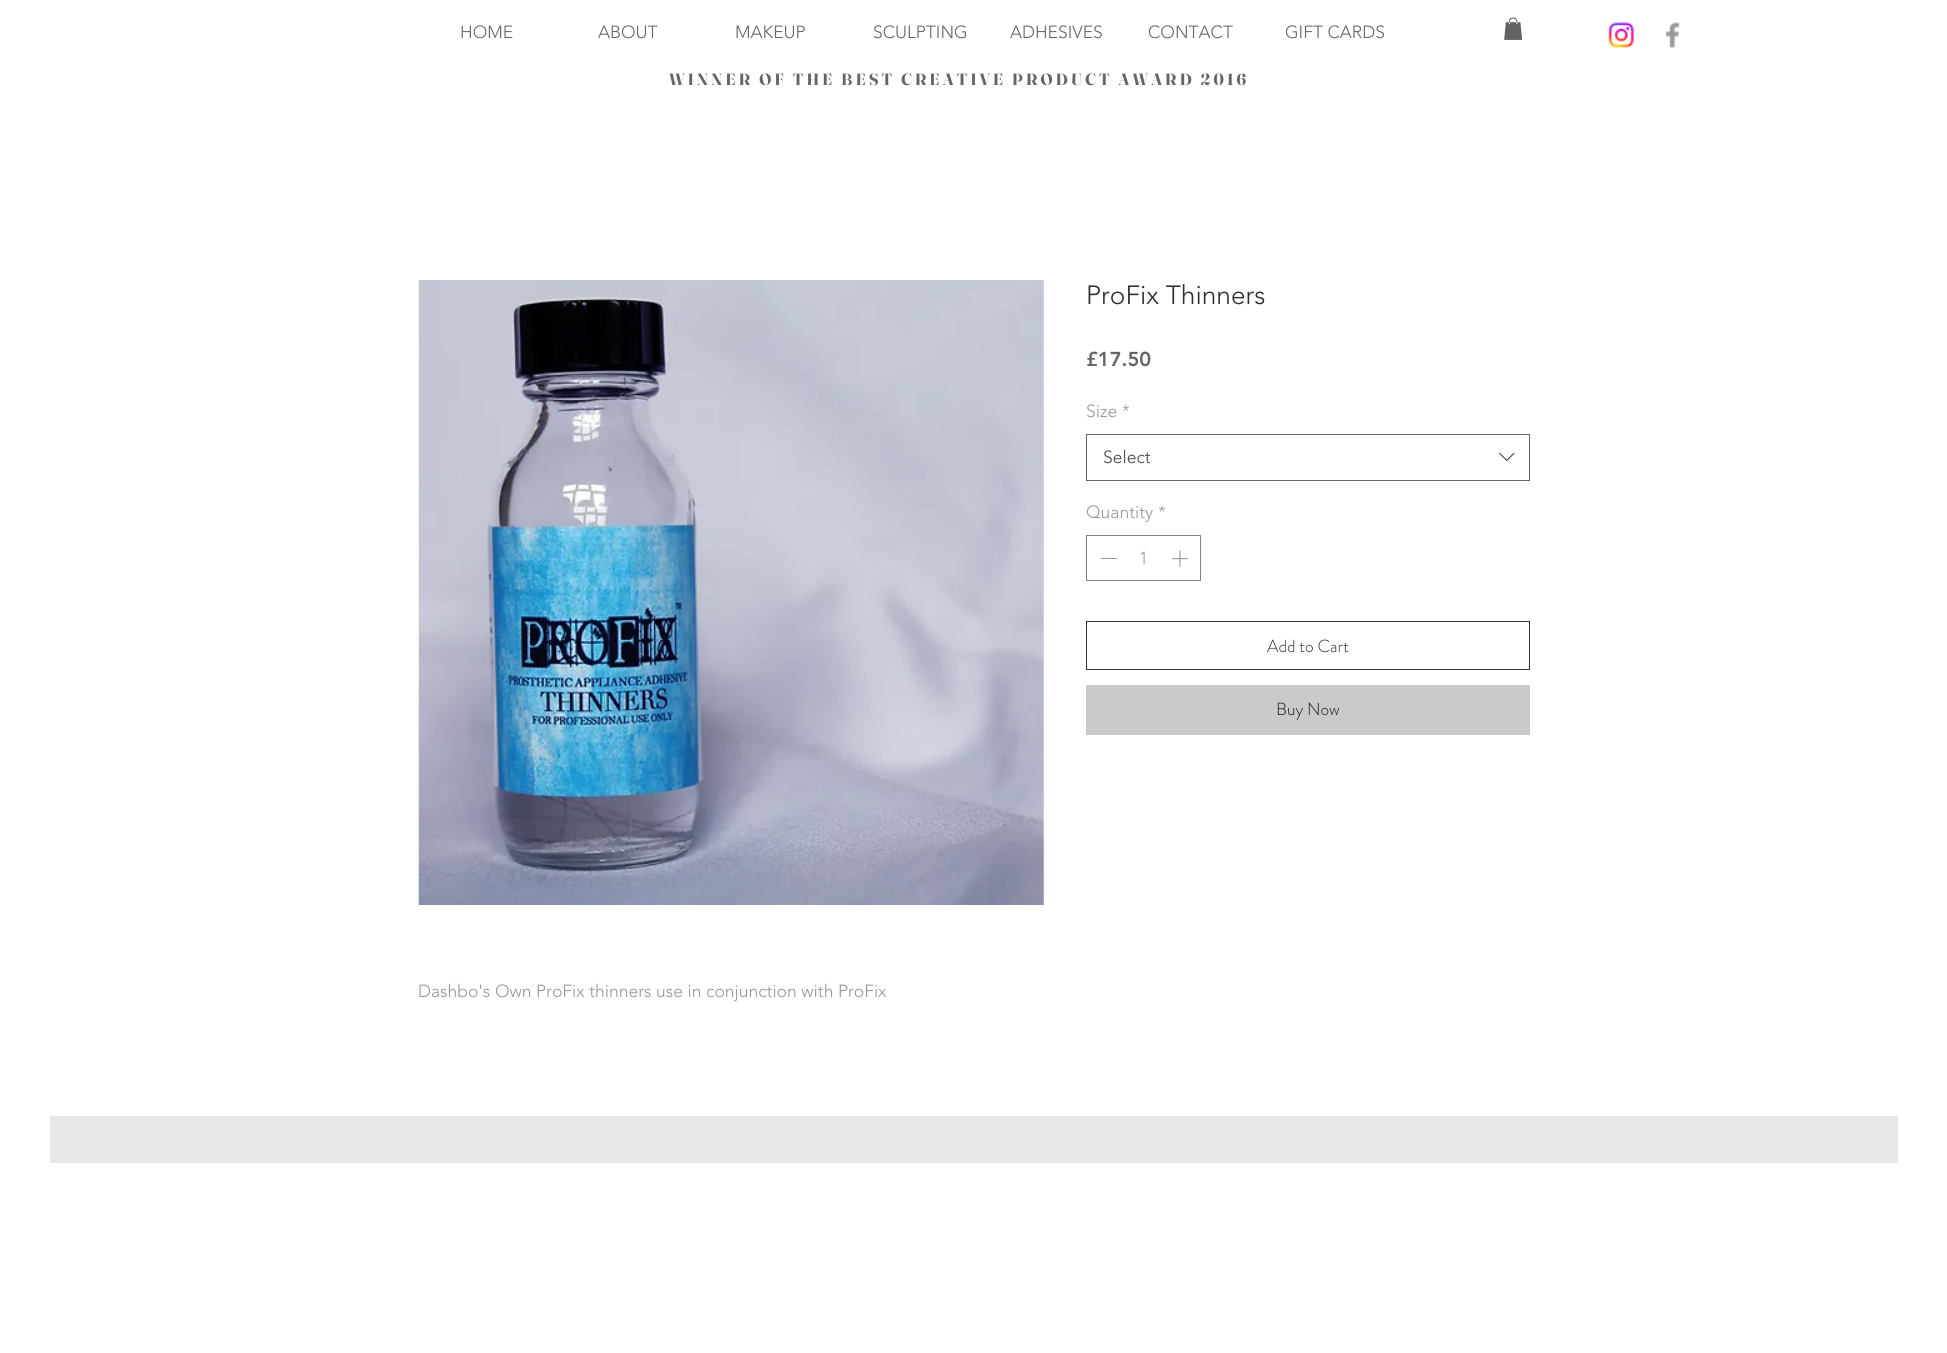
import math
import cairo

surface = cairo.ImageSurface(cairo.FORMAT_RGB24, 1947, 1353)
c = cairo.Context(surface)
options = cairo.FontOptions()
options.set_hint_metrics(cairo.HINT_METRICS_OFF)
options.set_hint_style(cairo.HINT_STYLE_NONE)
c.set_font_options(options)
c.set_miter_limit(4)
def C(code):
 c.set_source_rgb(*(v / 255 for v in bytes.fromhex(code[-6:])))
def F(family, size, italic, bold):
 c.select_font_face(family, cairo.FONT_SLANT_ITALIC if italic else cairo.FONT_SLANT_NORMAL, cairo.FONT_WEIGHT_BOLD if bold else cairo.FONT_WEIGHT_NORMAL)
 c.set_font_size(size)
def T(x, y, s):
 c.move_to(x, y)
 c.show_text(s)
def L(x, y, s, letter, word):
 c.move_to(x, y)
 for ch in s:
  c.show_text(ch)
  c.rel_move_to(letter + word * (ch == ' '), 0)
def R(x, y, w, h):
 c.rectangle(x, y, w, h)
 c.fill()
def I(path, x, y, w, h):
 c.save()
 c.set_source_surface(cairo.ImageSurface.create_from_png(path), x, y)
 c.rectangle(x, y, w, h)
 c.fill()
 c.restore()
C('ffffff')
c.paint()
F('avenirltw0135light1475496 Light',17.5,0,0)
C('656567')
T(460,38,'HOME')
T(598,38,'ABOUT')
T(735,38,'MAKEUP')
T(873,38,'SCULPTING')
T(1010,38,'ADHESIVES')
T(1148,38,'CONTACT')
T(1285,38,'GIFT CARDS')
I('1.png',1504,17,19,23)
I('2.png',1608,22,26,26)
I('3.png',1665,22,15,26)
F('Fraunces',16.25,0,1)
L(669,85,'WINNER OF THE BEST CREATIVE PRODUCT AWARD 2016',3.25,0)
F('avenirltw0135light1475496 Light',26.25,0,0)
C('2e2e2e')
T(1086,304,'ProFix Thinners')
F('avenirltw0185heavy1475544 Black',20,0,0)
C('656567')
T(1086,366,'£17.50')
F('avenirltw0135light1475496 Light',17.5,0,0)
C('969696')
T(1086,417,'Size')
T(1122,417,'*')
c.rectangle(1086.5,434.5,443,46)
C('666666')
c.set_line_width(1)
c.stroke()
C('444444')
T(1103,463,'Select')
I('4.png',1499,452,16,10)
C('969696')
T(1086,518,'Quantity')
T(1158,518,'*')
c.rectangle(1086.5,535.5,114,45)
C('828282')
c.stroke()
C('969696')
R(1101,558,16,1)
T(1139,564,'1')
I('5.png',1171,550,18,17)
c.rectangle(1086.5,621.5,443,48)
C('323234')
c.stroke()
F('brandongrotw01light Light',17.5,0,0)
C('2e2e2e')
T(1267,652,'Add to Cart')
C('cacacc')
R(1086,685,444,50)
C('19191a')
T(1276,715,'Buy Now')
I('6.png',418,280,626,625)
F('avenirltw0135light1475496 Light',17.5,0,0)
C('969696')
T(418,997,'Dashbo\'s Own ProFix thinners use in conjunction with ProFix')
C('e8e6e6')
R(50,1116,1848,47)
surface.write_to_png('o.png')
